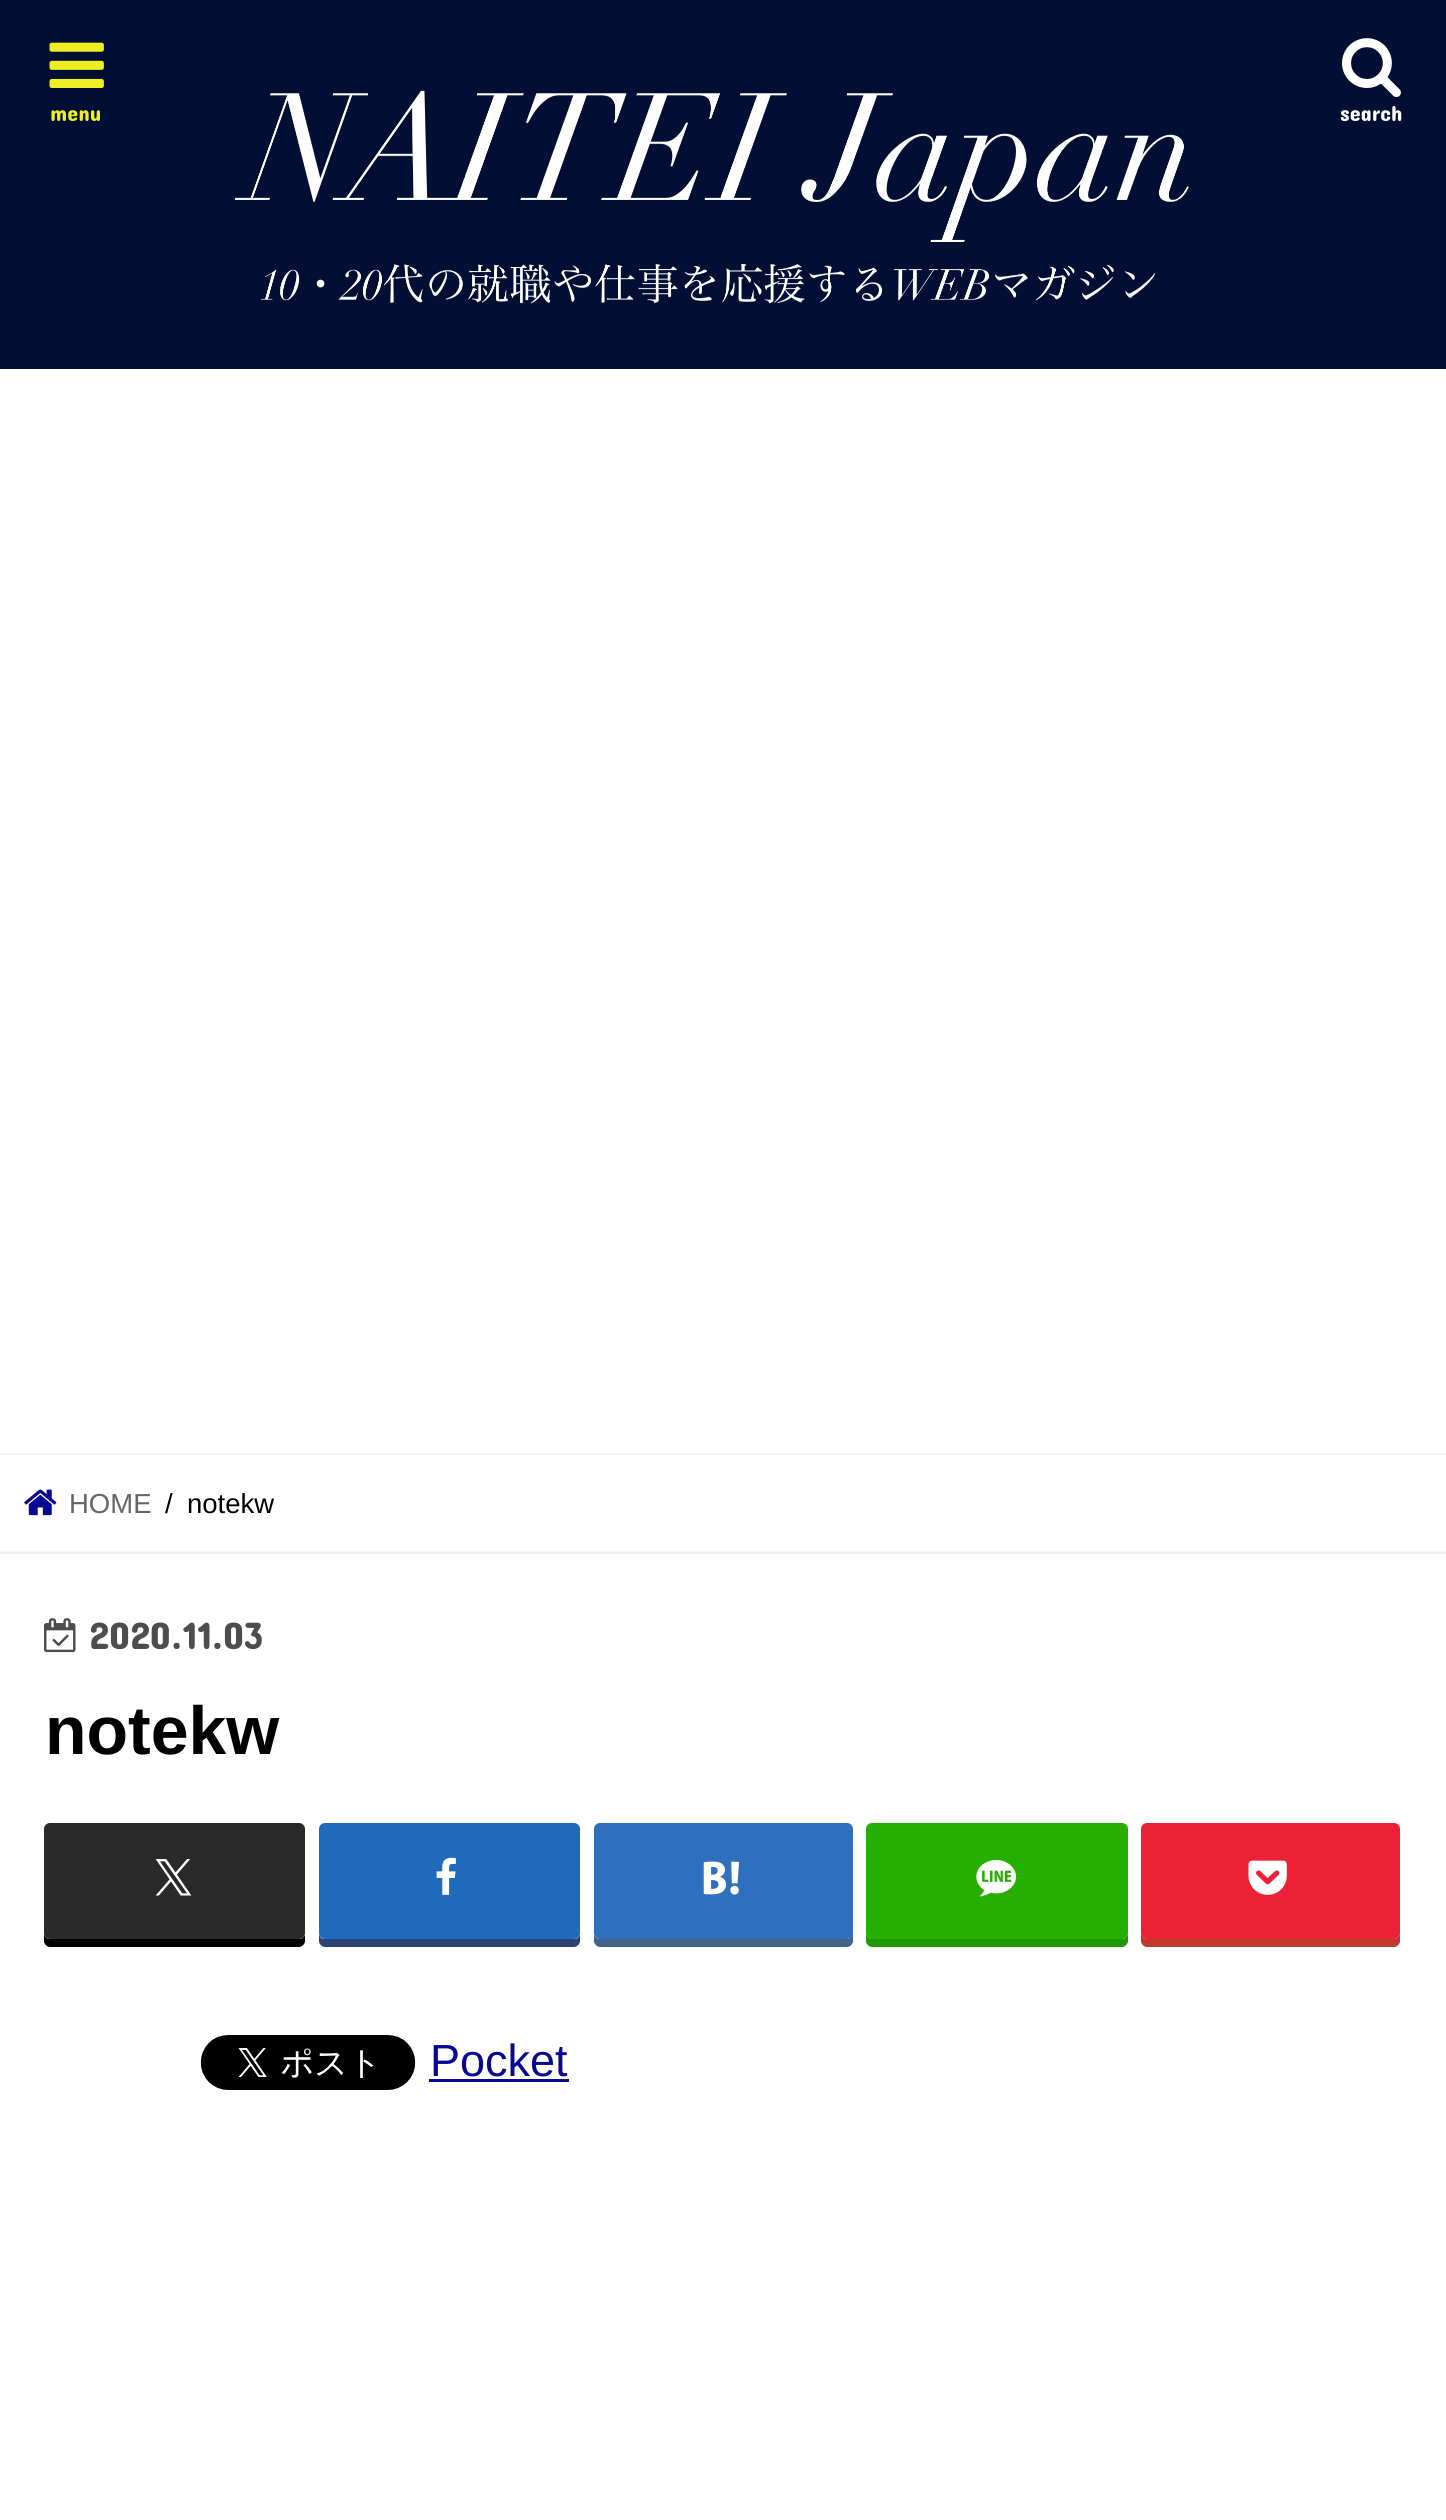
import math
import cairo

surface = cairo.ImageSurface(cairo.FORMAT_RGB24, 1446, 2520)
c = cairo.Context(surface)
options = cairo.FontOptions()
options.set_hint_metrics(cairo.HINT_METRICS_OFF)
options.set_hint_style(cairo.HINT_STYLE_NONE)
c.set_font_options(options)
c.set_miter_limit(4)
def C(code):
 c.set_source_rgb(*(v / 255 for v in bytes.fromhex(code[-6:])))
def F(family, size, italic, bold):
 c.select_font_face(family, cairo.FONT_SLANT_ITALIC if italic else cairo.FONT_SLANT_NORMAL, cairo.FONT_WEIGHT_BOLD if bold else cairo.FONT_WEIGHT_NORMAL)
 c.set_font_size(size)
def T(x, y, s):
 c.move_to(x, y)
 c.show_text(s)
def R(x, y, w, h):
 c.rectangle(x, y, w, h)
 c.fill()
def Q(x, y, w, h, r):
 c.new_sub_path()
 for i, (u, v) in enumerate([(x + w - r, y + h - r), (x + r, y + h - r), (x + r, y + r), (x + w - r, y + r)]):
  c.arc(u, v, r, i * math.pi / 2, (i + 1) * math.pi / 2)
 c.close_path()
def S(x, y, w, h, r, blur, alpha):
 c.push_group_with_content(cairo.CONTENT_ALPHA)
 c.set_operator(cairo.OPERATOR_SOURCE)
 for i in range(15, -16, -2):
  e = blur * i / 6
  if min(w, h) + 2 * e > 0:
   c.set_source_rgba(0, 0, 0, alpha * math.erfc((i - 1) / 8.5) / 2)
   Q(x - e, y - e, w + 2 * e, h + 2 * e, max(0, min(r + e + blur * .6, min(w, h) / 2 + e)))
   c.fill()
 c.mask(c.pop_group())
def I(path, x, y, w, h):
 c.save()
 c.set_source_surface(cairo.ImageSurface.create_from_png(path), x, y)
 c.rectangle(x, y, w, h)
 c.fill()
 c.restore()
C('ffffff')
c.paint()
C('000f33')
R(0,0,1446,369)
I('1.png',49,42,55,46)
F('Concert One',22,0,0)
C('eeee22')
T(50,121,'menu')
I('2.png',234,90,955,214)
I('3.png',1342,38,59,60)
C('ffffff')
T(1340,121,'search')
C('dddddd')
S(0,1455,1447,99,0,1.5,1)
C('ffffff')
R(0,1455,1446,96)
C('f7f7f7')
R(0,1551,1446,3)
I('4.png',24,1489,33,27)
F('Liberation Sans',27.5,0,0)
C('666666')
T(69,1513,'HOME')
C('000000')
T(165,1513,'/')
T(187,1513,'notekw')
C('dddddd')
S(0,1554,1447,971,0,1.5,1)
C('ffffff')
R(0,1554,1446,966)
I('5.png',44,1618,32,35)
F('Concert One',38.5,0,0)
C('4d4d4d')
T(89,1649,'2020.11.03')
F('Liberation Sans',68,0,1)
C('000000')
T(45,1754,'notekw')
c.new_path()
c.move_to(44,1933)
c.line_to(44,1941)
c.curve_to(44,1944,47,1947,50,1947)
c.line_to(299,1947)
c.curve_to(302,1947,305,1944,305,1941)
c.line_to(305,1935)
c.curve_to(304,1937,302,1939,300,1939)
c.line_to(50,1939)
c.curve_to(46,1939,44,1936,44,1933)
c.close_path()
c.fill()
C('2a2a2a')
Q(44,1823,261,116,6)
c.fill()
I('6.png',155,1859,37,37)
C('2c4373')
c.new_path()
c.move_to(319,1933)
c.line_to(319,1941)
c.curve_to(319,1944,322,1947,325,1947)
c.line_to(574,1947)
c.curve_to(577,1947,580,1944,580,1941)
c.line_to(580,1935)
c.curve_to(579,1937,577,1939,575,1939)
c.line_to(324,1939)
c.curve_to(321,1939,319,1936,319,1933)
c.close_path()
c.fill()
C('1f6aba')
Q(319,1823,261,116,6)
c.fill()
I('7.png',436,1857,20,38)
C('43638b')
c.new_path()
c.move_to(594,1933)
c.line_to(594,1941)
c.curve_to(594,1944,597,1947,600,1947)
c.line_to(847,1947)
c.curve_to(850,1947,853,1944,853,1941)
c.line_to(853,1838)
c.line_to(852,1836)
c.line_to(852,1933)
c.curve_to(852,1936,850,1939,847,1939)
c.line_to(600,1939)
c.curve_to(596,1939,594,1936,594,1933)
c.close_path()
c.fill()
C('2f70be')
Q(594,1823,259,116,6)
c.fill()
I('8.png',703,1861,36,34)
C('219900')
c.new_path()
c.move_to(866,1836)
c.line_to(866,1941)
c.curve_to(866,1944,869,1947,872,1947)
c.line_to(1122,1947)
c.curve_to(1125,1947,1128,1944,1128,1941)
c.line_to(1128,1838)
c.line_to(1128,1836)
c.line_to(1128,1933)
c.curve_to(1128,1936,1125,1939,1122,1939)
c.line_to(872,1939)
c.curve_to(869,1939,866,1936,866,1933)
c.close_path()
c.fill()
C('25af00')
Q(866,1823,262,116,6)
c.fill()
I('9.png',976,1860,40,37)
C('c0392b')
c.new_path()
c.move_to(1141,1836)
c.line_to(1141,1941)
c.curve_to(1141,1944,1144,1947,1147,1947)
c.line_to(1394,1947)
c.curve_to(1397,1947,1400,1944,1400,1941)
c.line_to(1400,1836)
c.line_to(1400,1933)
c.curve_to(1400,1936,1397,1939,1394,1939)
c.line_to(1147,1939)
c.curve_to(1144,1939,1141,1936,1141,1933)
c.close_path()
c.fill()
C('ec2136')
Q(1141,1823,259,116,6)
c.fill()
I('10.png',1248,1860,39,35)
I('11.png',200,2035,216,55)
F('Liberation Sans',45,0,0)
C('070993')
T(430,2076,'Pocket')
R(429,2079,140,3)
surface.write_to_png('o.png')
